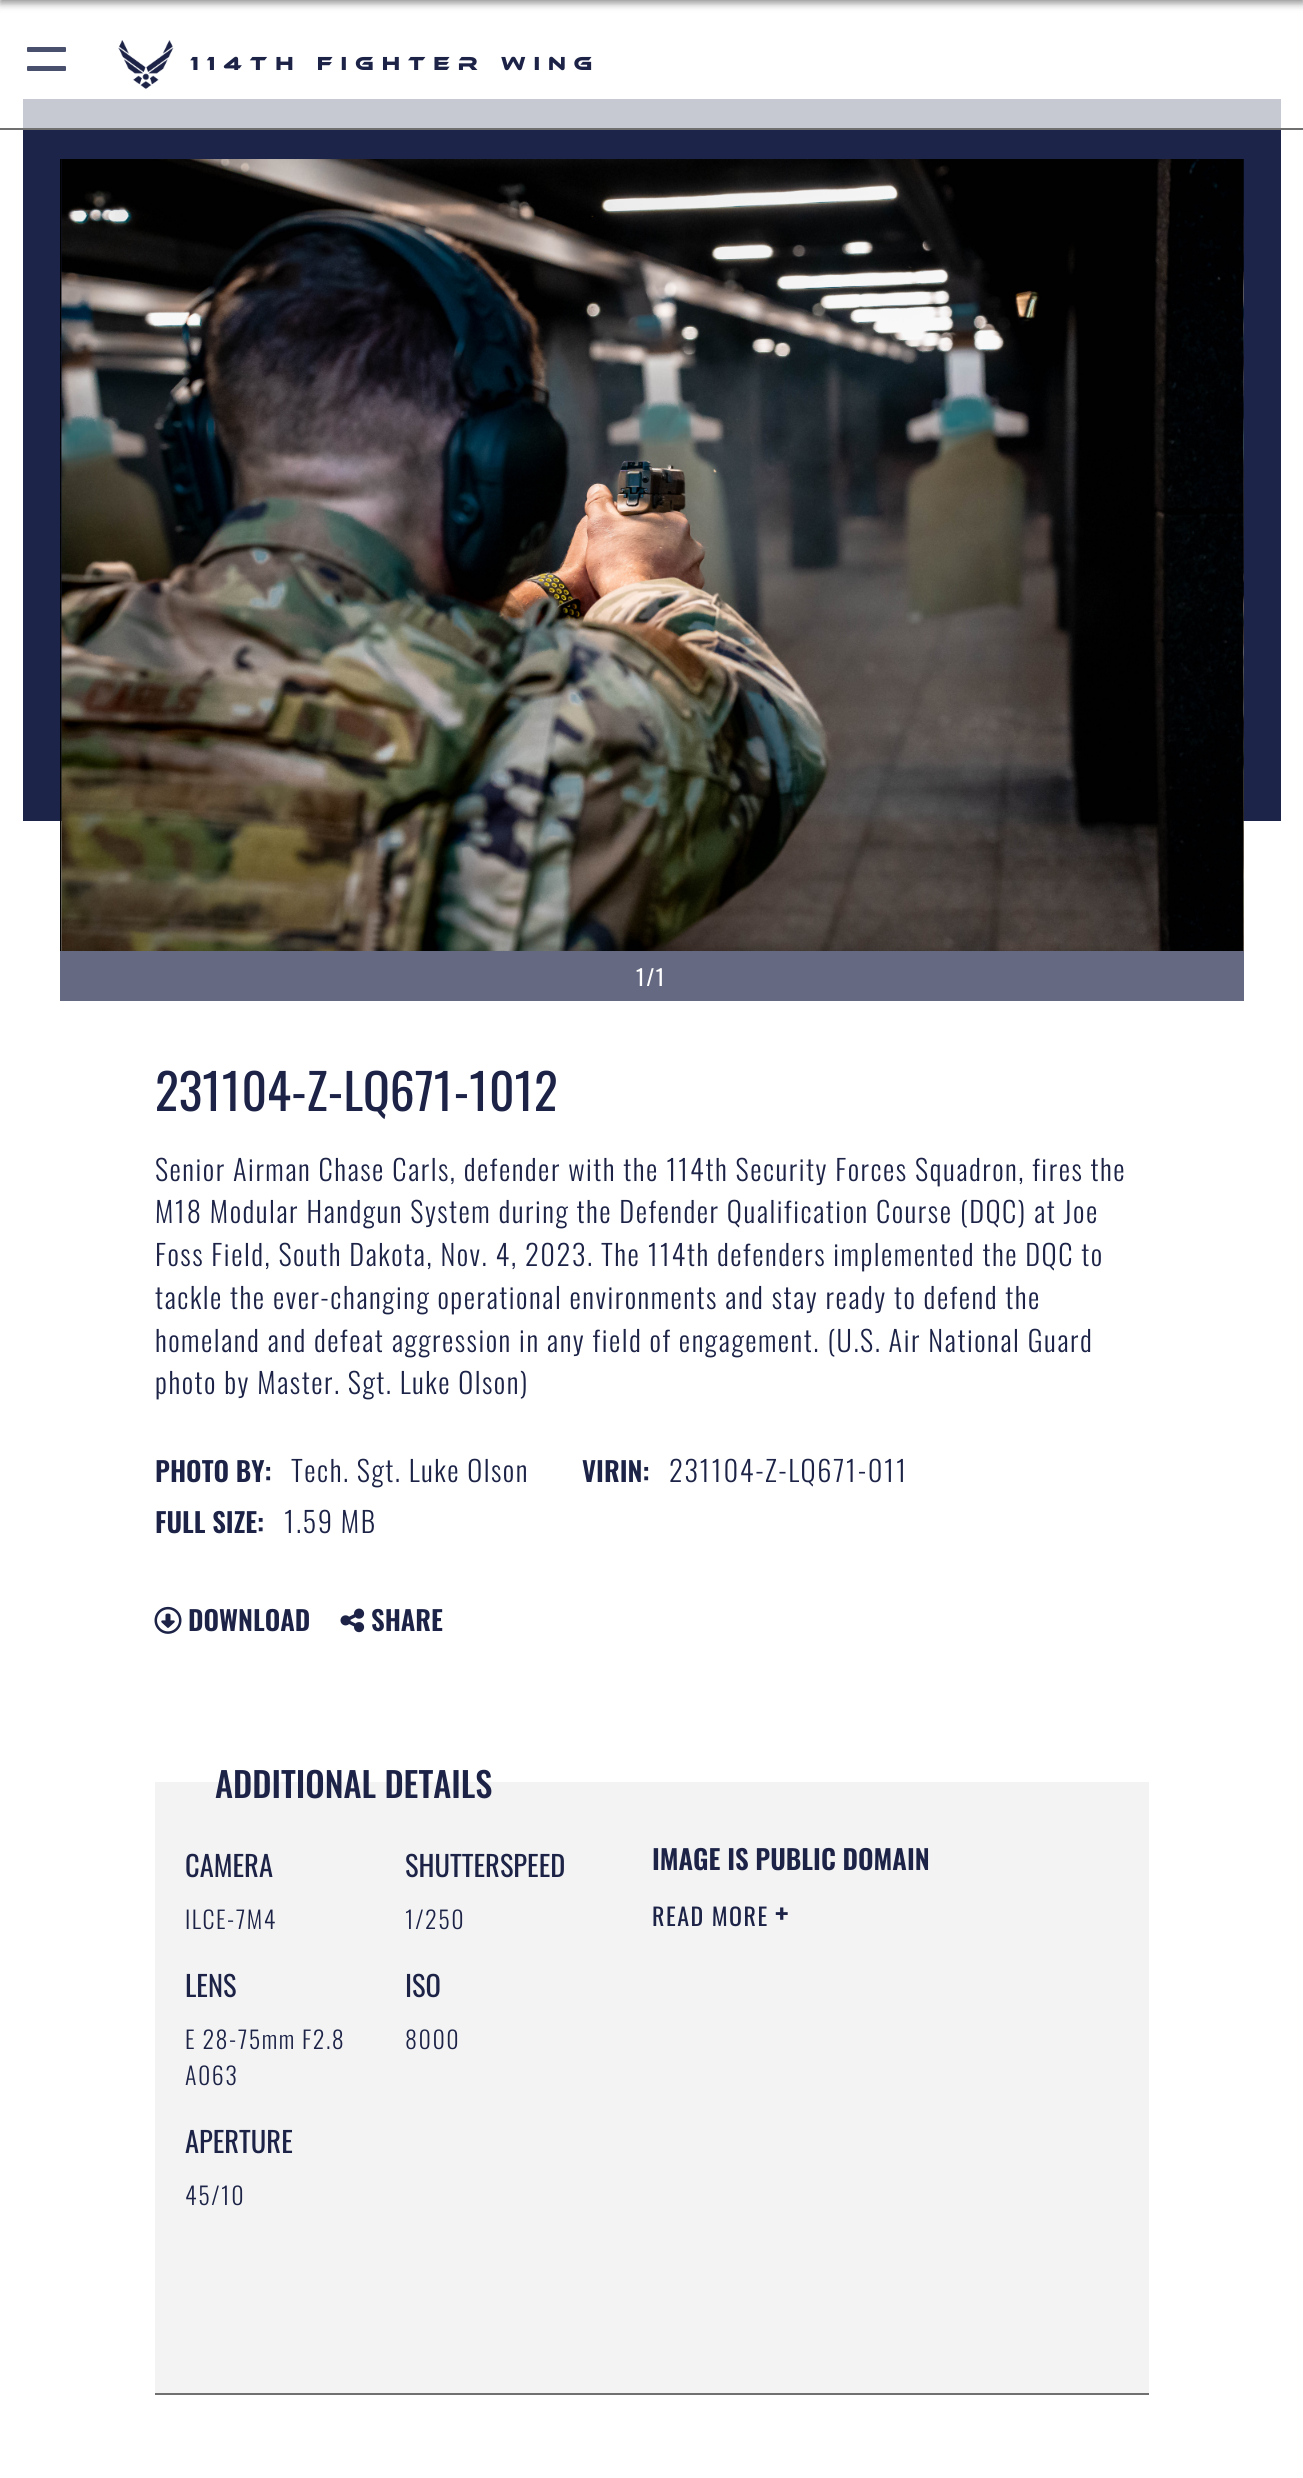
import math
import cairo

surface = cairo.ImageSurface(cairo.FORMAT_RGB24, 1303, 2478)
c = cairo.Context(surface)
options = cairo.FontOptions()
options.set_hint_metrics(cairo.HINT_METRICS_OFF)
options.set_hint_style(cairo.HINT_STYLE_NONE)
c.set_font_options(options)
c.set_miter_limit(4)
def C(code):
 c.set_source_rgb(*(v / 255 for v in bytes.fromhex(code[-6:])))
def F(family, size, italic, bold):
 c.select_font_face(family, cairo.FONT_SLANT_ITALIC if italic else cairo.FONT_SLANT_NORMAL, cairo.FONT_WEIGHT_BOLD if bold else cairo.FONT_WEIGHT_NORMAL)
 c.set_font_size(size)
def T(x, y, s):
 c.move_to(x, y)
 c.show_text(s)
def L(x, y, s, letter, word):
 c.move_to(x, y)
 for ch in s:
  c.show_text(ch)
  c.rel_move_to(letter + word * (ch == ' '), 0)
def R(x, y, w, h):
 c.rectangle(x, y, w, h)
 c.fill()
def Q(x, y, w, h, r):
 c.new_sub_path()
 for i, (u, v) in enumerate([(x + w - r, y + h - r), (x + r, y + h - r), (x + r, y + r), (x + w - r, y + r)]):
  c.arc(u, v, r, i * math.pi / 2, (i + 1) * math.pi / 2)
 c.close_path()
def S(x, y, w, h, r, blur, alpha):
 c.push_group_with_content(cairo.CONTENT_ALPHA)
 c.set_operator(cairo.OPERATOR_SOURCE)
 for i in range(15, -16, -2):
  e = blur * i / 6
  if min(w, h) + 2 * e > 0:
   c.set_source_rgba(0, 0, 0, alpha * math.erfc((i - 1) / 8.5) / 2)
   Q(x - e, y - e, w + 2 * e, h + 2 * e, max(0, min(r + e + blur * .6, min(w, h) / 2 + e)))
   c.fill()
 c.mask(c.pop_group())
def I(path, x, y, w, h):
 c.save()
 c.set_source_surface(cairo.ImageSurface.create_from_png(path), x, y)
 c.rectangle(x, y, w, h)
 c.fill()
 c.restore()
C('ffffff')
c.paint()
C('1a1a1a')
S(0,-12,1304,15,0,4,.5)
C('707070')
R(0,128,1303,2)
C('49506d')
Q(27,47,39,5,1)
c.fill()
Q(27,66,39,5,1)
c.fill()
I('1.png',118,40,56,50)
F('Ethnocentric',19.5,0,0)
C('1c2347')
L(190,70,'114th Fighter Wing',7.9,0)
C('1c2449')
R(23,130,1258,691)
C('c6c8d2')
R(23,99,1258,29)
I('2.png',60,159,2,792)
I('3.png',61,159,1183,792)
I('4.png',1243,159,1,792)
C('656a82')
R(60,951,1184,50)
F('Oswald',22,0,0)
C('ffffff')
L(636,986,'1/1',1.5,0)
F('Oswald',49.5,0,0)
C('1c2347')
T(155,1111,'231104-Z-LQ671-1012')
F('Oswald Light',28.5,0,0)
L(155,1181,'Senior Airman Chase Carls, defender with the 114th Security Forces Squadron, fires the',1.5,0)
L(155,1223,'M18 Modular Handgun System during the Defender Qualification Course (DQC) at Joe',1.5,0)
L(155,1266,'Foss Field, South Dakota, Nov. 4, 2023. The 114th defenders implemented the DQC to',1.5,0)
L(155,1309,'tackle the ever-changing operational environments and stay ready to defend the',1.5,0)
L(155,1352,'homeland and defeat aggression in any field of engagement. (U.S. Air National Guard',1.5,0)
L(155,1394,'photo by Master. Sgt. Luke Olson)',1.5,0)
F('Oswald SemiBold',27,0,0)
T(155,1482,'PHOTO BY:')
F('Oswald Light',28.5,0,0)
L(291,1482,'Tech. Sgt. Luke Olson',1.5,0)
F('Oswald SemiBold',27,0,0)
T(582,1482,'VIRIN:')
F('Oswald Light',28.5,0,0)
L(669,1482,'231104-Z-LQ671-011',1.5,0)
F('Oswald SemiBold',27,0,0)
T(155,1533,'FULL SIZE:')
F('Oswald Light',28.5,0,0)
L(284,1533,'1.59 MB',1.5,0)
I('5.png',154,1606,28,28)
F('Oswald SemiBold',27,0,0)
T(188,1631,'DOWNLOAD')
I('6.png',340,1608,25,25)
T(371,1631,'SHARE')
C('f3f3f3')
R(155,1782,994,611)
C('707070')
R(155,2393,994,2)
F('Oswald Medium',34.5,0,0)
C('1c2347')
T(215,1798,'ADDITIONAL DETAILS')
F('Oswald',28.5,0,0)
T(185,1877,'CAMERA')
F('Oswald Light',24,0,0)
L(185,1929,'ILCE-7M4',1.5,0)
F('Oswald',28.5,0,0)
T(185,1997,'LENS')
F('Oswald Light',24,0,0)
L(185,2049,'E 28-75mm F2.8',1.5,0)
L(185,2085,'A063',1.5,0)
F('Oswald',28.5,0,0)
T(185,2153,'APERTURE')
F('Oswald Light',24,0,0)
L(185,2205,'45/10',1.5,0)
F('Oswald',28.5,0,0)
T(405,1877,'SHUTTERSPEED')
F('Oswald Light',24,0,0)
L(405,1929,'1/250',1.5,0)
F('Oswald',28.5,0,0)
T(405,1997,'ISO')
F('Oswald Light',24,0,0)
L(405,2049,'8000',1.5,0)
F('Oswald SemiBold',27,0,0)
T(652,1870,'IMAGE IS PUBLIC DOMAIN')
F('Oswald',24,0,0)
L(652,1926,'READ MORE',1.5,0)
F('Oswald',30,0,1)
L(775,1926,'+',1.5,0)
surface.write_to_png('o.png')
